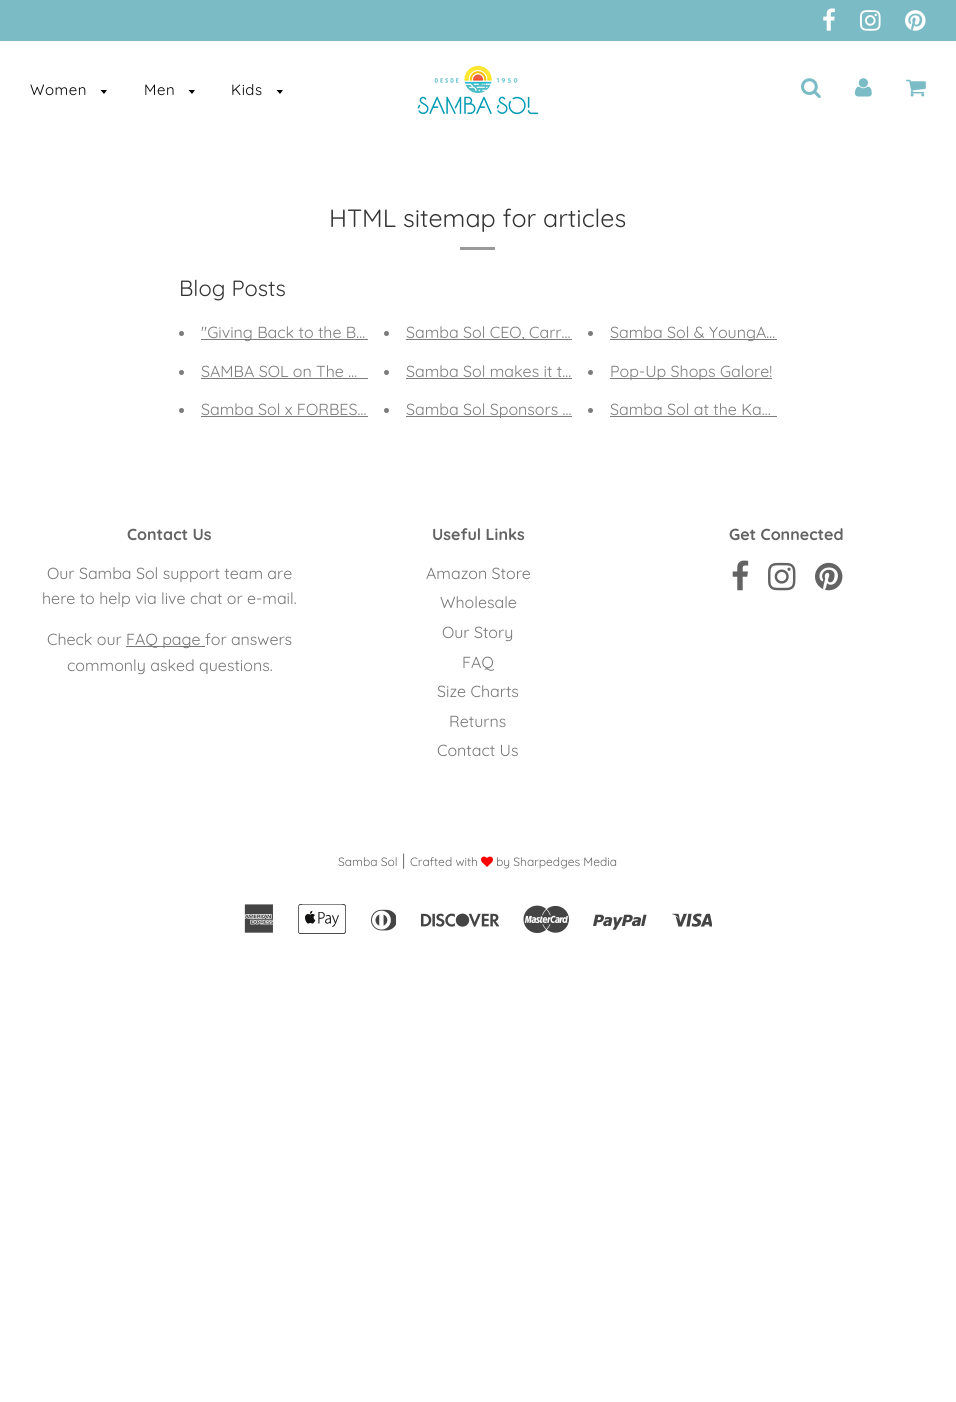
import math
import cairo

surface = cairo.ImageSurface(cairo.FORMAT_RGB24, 956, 1402)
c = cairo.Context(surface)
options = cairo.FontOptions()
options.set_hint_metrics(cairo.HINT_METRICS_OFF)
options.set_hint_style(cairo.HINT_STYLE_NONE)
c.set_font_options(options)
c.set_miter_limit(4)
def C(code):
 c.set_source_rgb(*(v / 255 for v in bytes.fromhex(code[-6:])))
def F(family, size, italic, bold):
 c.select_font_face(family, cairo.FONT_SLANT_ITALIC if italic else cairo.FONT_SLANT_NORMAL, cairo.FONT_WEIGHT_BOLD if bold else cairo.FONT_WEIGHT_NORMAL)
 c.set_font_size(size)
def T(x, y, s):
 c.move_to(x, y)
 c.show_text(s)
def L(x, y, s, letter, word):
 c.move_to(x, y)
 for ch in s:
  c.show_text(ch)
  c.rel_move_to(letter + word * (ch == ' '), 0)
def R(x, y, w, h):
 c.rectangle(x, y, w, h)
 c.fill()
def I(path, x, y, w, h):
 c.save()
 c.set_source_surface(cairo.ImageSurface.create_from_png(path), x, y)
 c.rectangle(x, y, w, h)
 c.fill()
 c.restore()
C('ffffff')
c.paint()
C('7abbc5')
R(0,0,956,41)
I('1.png',823,8,12,23)
I('2.png',860,10,21,21)
I('3.png',905,10,21,21)
F('Quicksand',15,0,0)
C('000000')
L(30,95,'Women',.5,0)
c.new_path()
c.move_to(100.5,90)
c.line_to(104,94)
c.line_to(107,90)
c.close_path()
c.fill()
L(144,95,'Men',.5,0)
c.new_path()
c.move_to(188.5,90)
c.line_to(192,94)
c.line_to(195,90)
c.close_path()
c.fill()
L(231,95,'Kids',.5,0)
c.new_path()
c.move_to(276.5,90)
c.line_to(280,94)
c.line_to(283,90)
c.close_path()
c.fill()
I('4.png',417,65,122,50)
I('5.png',801,78,20,20)
I('6.png',855,78,17,19)
I('7.png',906,79,20,18)
F('Quicksand',25,0,0)
C('333333')
T(329,227,'HTML sitemap for articles')
C('999999')
R(460,247,35,3)
F('Quicksand',22,0,0)
C('333333')
T(179,296,'Blog Posts')
C('7c7c7c')
c.new_path()
c.arc(181.5,333.5,2.5,0,2 * math.pi)
c.fill()
R(201,339,167,1)
F('Quicksand',16,0,0)
T(201,338,'"Giving Back to the B…')
c.new_path()
c.arc(386.5,333.5,2.5,0,2 * math.pi)
c.fill()
R(406,339,166,1)
T(406,338,'Samba Sol CEO, Carr…')
c.new_path()
c.arc(590.5,333.5,2.5,0,2 * math.pi)
c.fill()
R(610,339,167,1)
T(610,338,'Samba Sol & YoungA…')
c.new_path()
c.arc(181.5,372.5,2.5,0,2 * math.pi)
c.fill()
T(201,377,'SAMBA SOL on The …')
R(201,378,167,1)
c.new_path()
c.arc(386.5,372.5,2.5,0,2 * math.pi)
c.fill()
T(406,377,'Samba Sol makes it t…')
R(406,378,166,1)
c.new_path()
c.arc(590.5,372.5,2.5,0,2 * math.pi)
c.fill()
R(610,378,162,1)
T(610,377,'Pop-Up Shops Galore!')
c.new_path()
c.arc(181.5,410.5,2.5,0,2 * math.pi)
c.fill()
T(201,415,'Samba Sol x FORBES…')
R(201,416,167,1)
c.new_path()
c.arc(386.5,410.5,2.5,0,2 * math.pi)
c.fill()
R(406,416,166,1)
T(406,415,'Samba Sol Sponsors …')
c.new_path()
c.arc(590.5,410.5,2.5,0,2 * math.pi)
c.fill()
T(610,415,'Samba Sol at the Ka…')
R(610,416,167,1)
F('Quicksand',16,0,1)
C('636363')
T(127,540,'Contact Us')
F('Quicksand',16,0,0)
C('767676')
T(47,579,'Our Samba Sol support team are')
T(42,604,'here to help via live chat or e-mail.')
T(47,645,'Check our')
R(126,646,79,1)
T(126,645,'FAQ page for answers')
T(67,671,'commonly asked questions.')
F('Quicksand',16,0,1)
C('636363')
T(432,540,'Useful Links')
F('Quicksand',16,0,0)
C('767676')
T(426,579,'Amazon Store')
T(440,608,'Wholesale')
T(442,638,'Our Story')
T(462,668,'FAQ')
T(437,697,'Size Charts')
T(449,727,'Returns')
T(437,756,'Contact Us')
F('Quicksand',16,0,1)
C('636363')
T(729,540,'Get Connected')
I('8.png',732,560,17,31)
I('9.png',768,562,28,29)
I('10.png',815,562,28,29)
F('Quicksand',12,0,0)
T(338,866,'Samba Sol')
F('Quicksand',16,0,0)
T(402,866,'|')
F('Quicksand',12,0,0)
T(410,866,'Crafted with')
I('11.png',481,856,12,11)
T(496,866,'by Sharpedges Media')
I('12.png',244,904,30,29)
I('13.png',298,904,48,30)
I('14.png',371,909,25,22)
I('15.png',421,913,78,14)
I('16.png',523,905,46,28)
I('17.png',593,914,54,16)
I('18.png',672,913,40,14)
surface.write_to_png('o.png')
